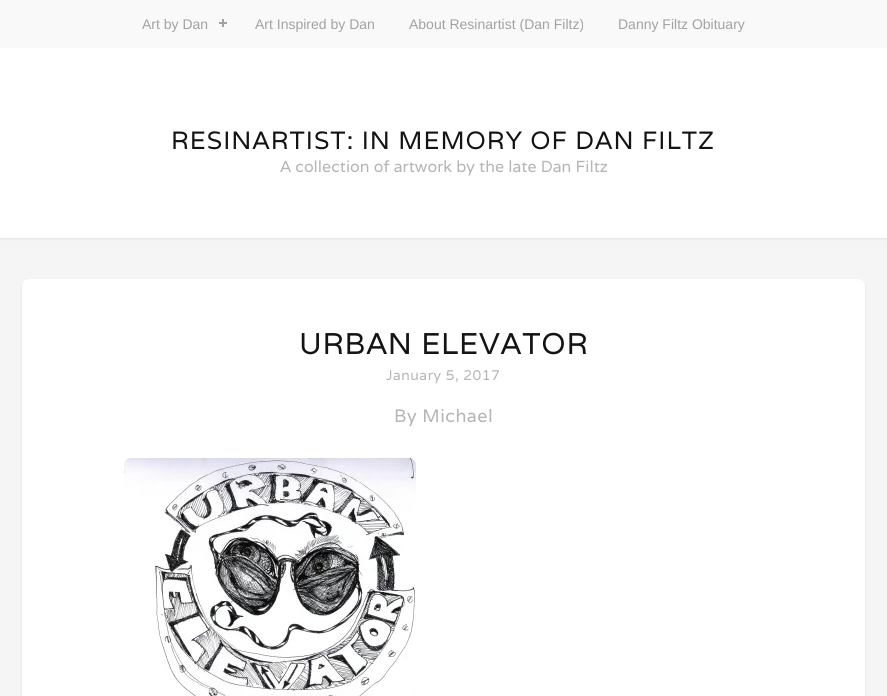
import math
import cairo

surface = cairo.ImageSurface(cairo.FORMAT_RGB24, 887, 696)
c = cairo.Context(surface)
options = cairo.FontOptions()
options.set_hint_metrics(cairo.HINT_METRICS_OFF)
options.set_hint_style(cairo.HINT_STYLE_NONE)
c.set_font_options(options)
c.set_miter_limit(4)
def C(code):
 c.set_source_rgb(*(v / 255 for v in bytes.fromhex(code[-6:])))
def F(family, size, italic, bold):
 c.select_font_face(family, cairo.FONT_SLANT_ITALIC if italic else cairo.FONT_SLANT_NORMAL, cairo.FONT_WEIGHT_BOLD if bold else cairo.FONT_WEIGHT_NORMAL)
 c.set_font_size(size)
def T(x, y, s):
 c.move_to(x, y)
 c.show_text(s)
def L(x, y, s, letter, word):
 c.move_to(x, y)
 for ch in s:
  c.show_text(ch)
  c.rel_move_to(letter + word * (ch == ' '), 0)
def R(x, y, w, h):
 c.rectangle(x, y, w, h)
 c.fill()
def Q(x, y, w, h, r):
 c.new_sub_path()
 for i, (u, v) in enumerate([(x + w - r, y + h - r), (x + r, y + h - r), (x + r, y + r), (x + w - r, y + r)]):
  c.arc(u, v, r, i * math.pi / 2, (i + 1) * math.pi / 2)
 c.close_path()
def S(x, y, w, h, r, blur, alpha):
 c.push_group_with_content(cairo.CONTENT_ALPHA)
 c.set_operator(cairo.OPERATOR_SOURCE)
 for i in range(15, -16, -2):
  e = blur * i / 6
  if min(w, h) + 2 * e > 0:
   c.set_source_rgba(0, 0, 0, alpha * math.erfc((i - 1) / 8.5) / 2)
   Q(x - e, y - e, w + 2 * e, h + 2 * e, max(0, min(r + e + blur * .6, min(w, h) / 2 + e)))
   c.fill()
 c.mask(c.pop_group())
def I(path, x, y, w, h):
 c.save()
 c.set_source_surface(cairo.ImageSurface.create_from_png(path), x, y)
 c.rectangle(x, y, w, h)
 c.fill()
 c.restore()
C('f5f5f5')
c.paint()
C('323232')
S(0,49,887,190,0,1,.1)
C('f9f9f9')
R(0,0,887,48)
F('Liberation Sans',14,0,0)
C('a2a2a2')
T(142,29,'Art by Dan')
R(222,19,2,8)
R(219,22,8,2)
T(255,29,'Art Inspired by Dan')
T(409,29,'About Resinartist (Dan Filtz)')
T(618,29,'Danny Filtz Obituary')
C('ffffff')
R(0,48,887,190)
F('Varela',25,0,0)
C('141414')
L(171,149,'RESINARTIST: IN MEMORY OF DAN FILTZ',1,0)
F('Varela',16,0,0)
C('b8b4b4')
T(280,172,'A collection of artwork by the late Dan Filtz')
C('323232')
S(22,280,843,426,7,1,.1)
C('ffffff')
Q(22,279,843,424,7)
c.fill()
F('Varela',30,0,0)
C('141414')
L(299,354,'URBAN ELEVATOR',.75,0)
F('Varela',14,0,0)
C('b8b4b4')
L(386,380,'January 5, 2017',.5,0)
F('Varela',18,0,0)
L(394,422,'By Michael',.5,0)
I('1.png',124,458,292,238)
surface.write_to_png('o.png')
